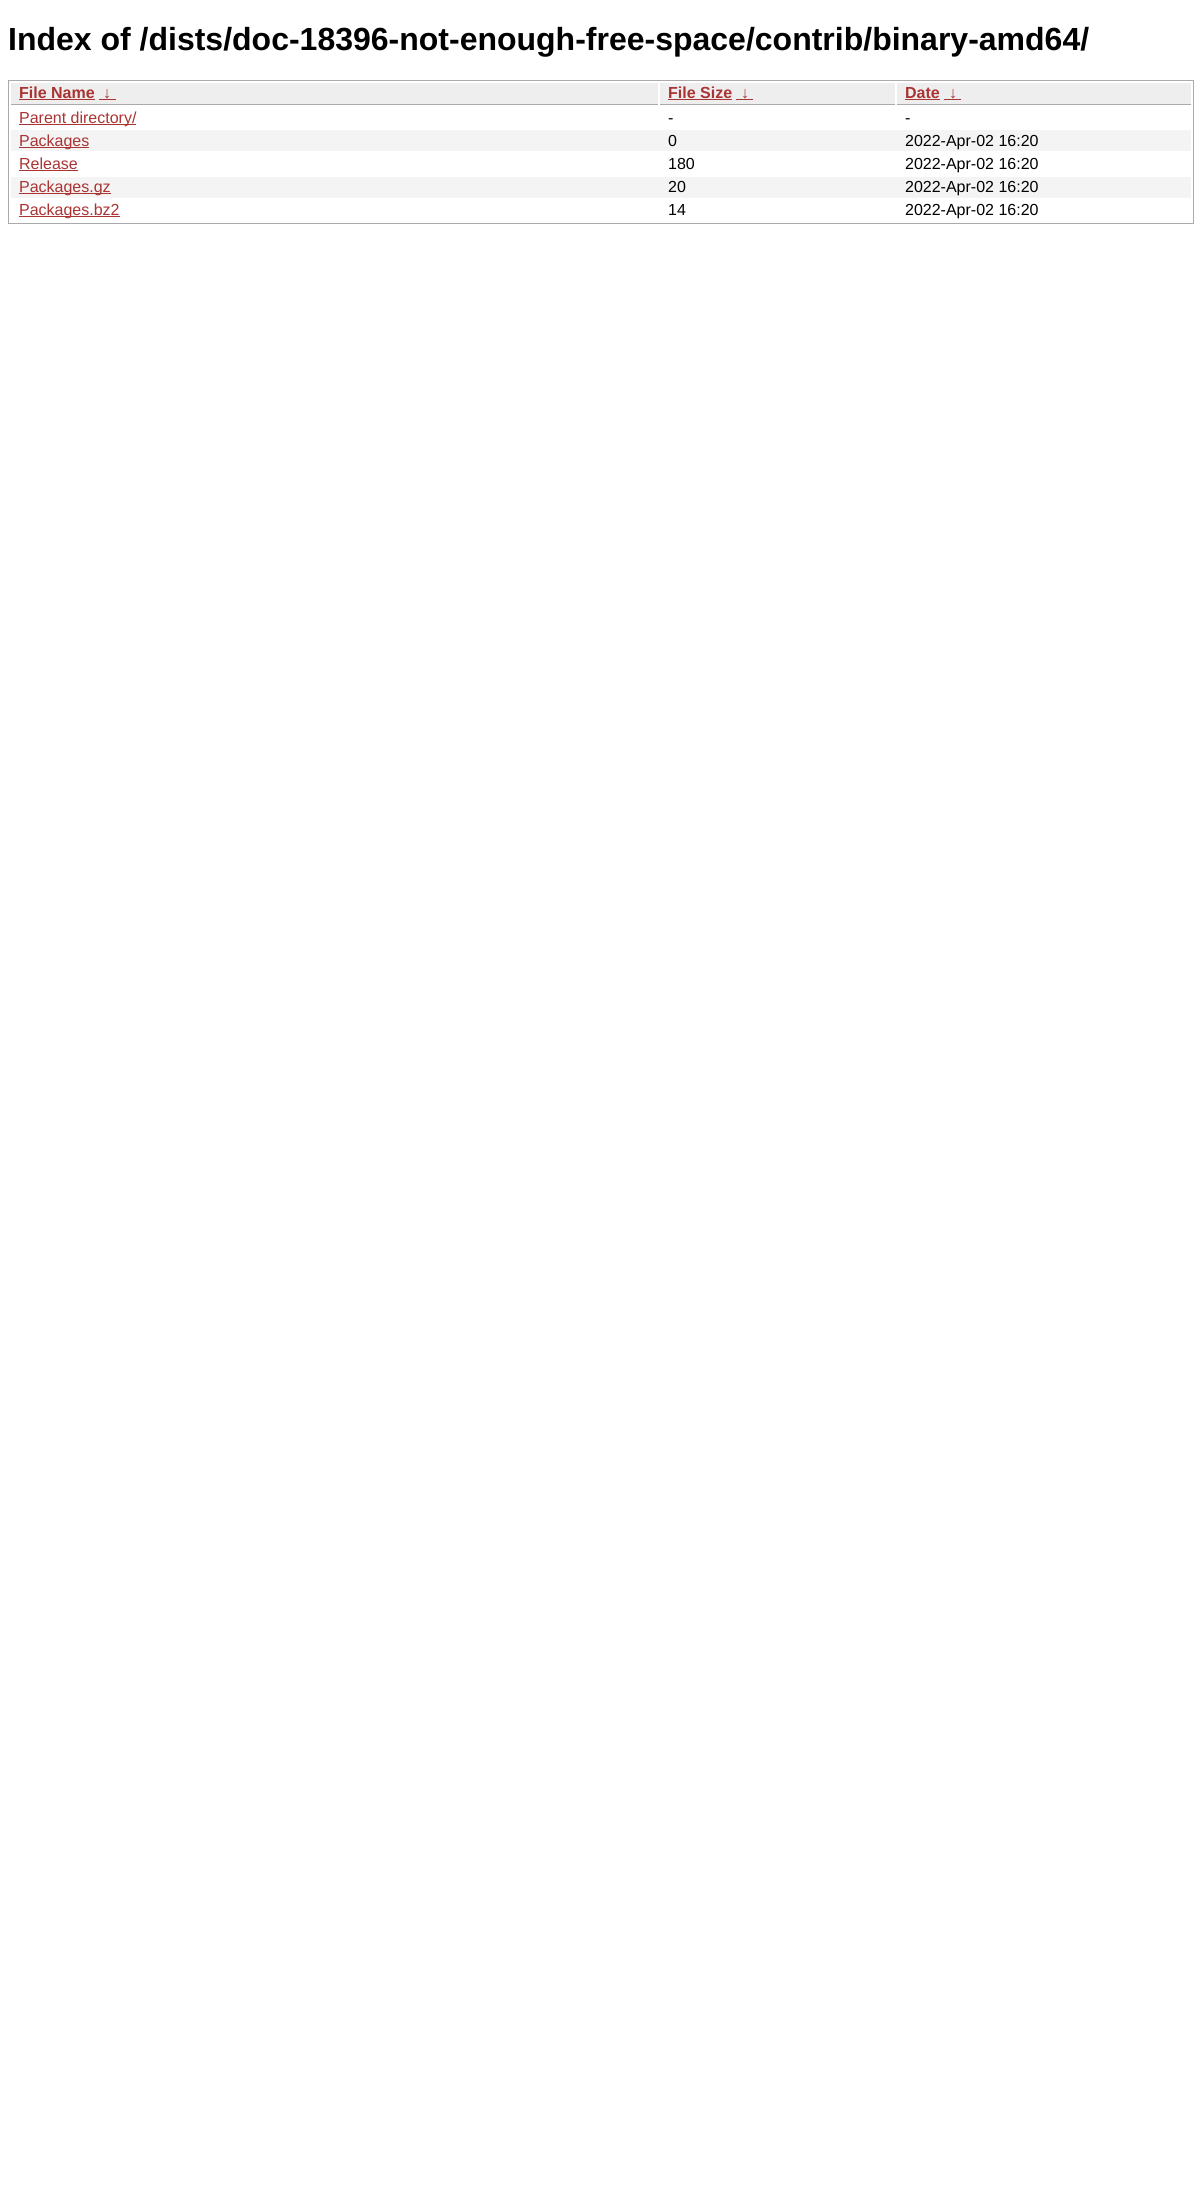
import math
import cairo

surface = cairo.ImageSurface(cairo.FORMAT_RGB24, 1202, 2210)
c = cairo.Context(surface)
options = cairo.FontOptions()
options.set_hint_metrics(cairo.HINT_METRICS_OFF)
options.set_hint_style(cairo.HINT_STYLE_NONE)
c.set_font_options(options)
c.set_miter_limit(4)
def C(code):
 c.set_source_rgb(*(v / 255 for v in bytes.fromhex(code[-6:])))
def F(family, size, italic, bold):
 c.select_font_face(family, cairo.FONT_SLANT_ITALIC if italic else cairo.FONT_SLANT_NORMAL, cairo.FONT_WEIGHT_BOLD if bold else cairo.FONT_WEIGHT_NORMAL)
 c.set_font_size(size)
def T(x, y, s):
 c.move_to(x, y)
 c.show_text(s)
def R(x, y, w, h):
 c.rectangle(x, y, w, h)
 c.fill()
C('ffffff')
c.paint()
F('Liberation Sans',32,0,1)
C('000000')
T(8,50,'Index of /dists/doc-18396-not-enough-free-space/contrib/binary-amd64/')
c.rectangle(8.5,80.5,1185,143)
C('aaaaaa')
c.set_line_width(1)
c.stroke()
C('eeeeee')
R(11,83,647,21)
C('aaaaaa')
R(11,104,647,1)
F('Liberation Sans',16,0,1)
C('aa3333')
T(19,98,'File Name')
R(19,99,76,1)
T(103,98,'↓')
R(99,99,17,1)
C('eeeeee')
R(660,83,235,21)
C('aaaaaa')
R(660,104,235,1)
C('aa3333')
T(668,98,'File Size')
R(668,99,64,1)
T(741,98,'↓')
R(736,99,17,1)
C('eeeeee')
R(897,83,294,21)
C('aaaaaa')
R(897,104,294,1)
C('aa3333')
T(905,98,'Date')
R(905,99,35,1)
T(949,98,'↓')
R(944,99,17,1)
R(19,124,117,1)
F('Liberation Sans',16,0,0)
T(19,123,'Parent directory/')
C('000000')
T(668,123,'-')
T(905,123,'-')
C('f4f4f4')
R(11,130,1180,21)
C('aa3333')
R(19,147,70,1)
T(19,146,'Packages')
C('000000')
T(668,146,'0')
T(905,146,'2022-Apr-02 16:20')
C('aa3333')
T(19,169,'Release')
R(19,170,59,1)
C('000000')
T(668,169,'180')
T(905,169,'2022-Apr-02 16:20')
C('f4f4f4')
R(11,177,1180,21)
C('aa3333')
R(19,193,92,1)
T(19,192,'Packages.gz')
C('000000')
T(668,192,'20')
T(905,192,'2022-Apr-02 16:20')
C('aa3333')
R(19,216,101,1)
T(19,215,'Packages.bz2')
C('000000')
T(668,215,'14')
T(905,215,'2022-Apr-02 16:20')
surface.write_to_png('o.png')
